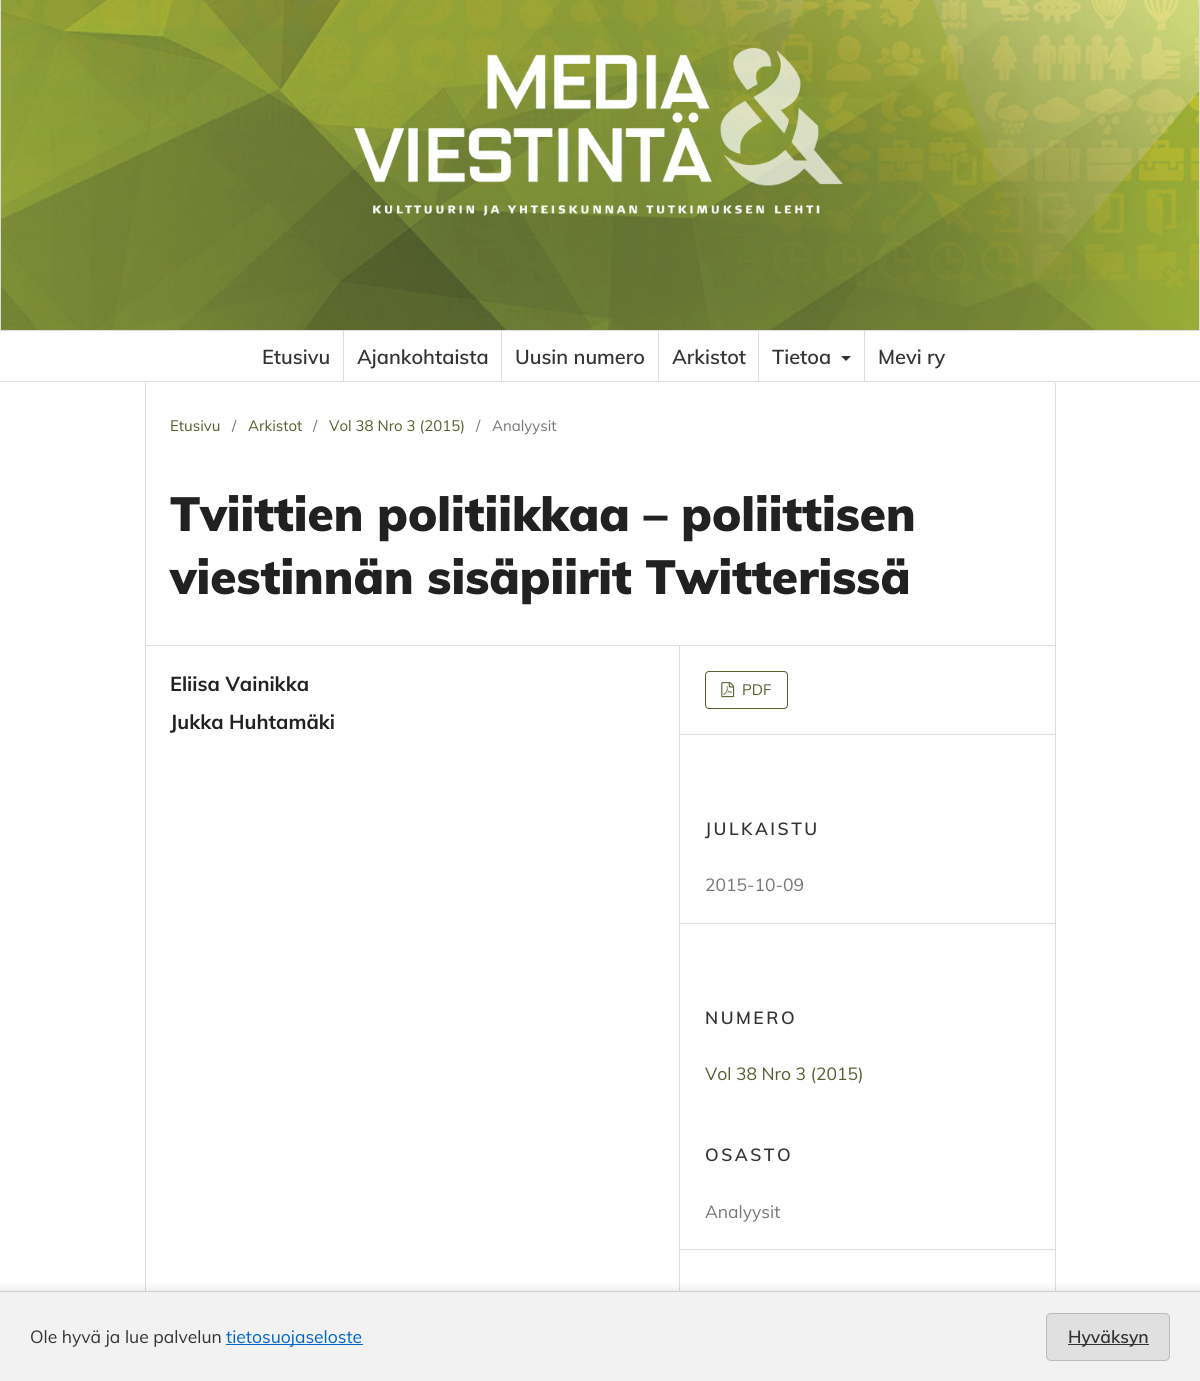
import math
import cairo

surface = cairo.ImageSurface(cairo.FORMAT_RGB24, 1200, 1381)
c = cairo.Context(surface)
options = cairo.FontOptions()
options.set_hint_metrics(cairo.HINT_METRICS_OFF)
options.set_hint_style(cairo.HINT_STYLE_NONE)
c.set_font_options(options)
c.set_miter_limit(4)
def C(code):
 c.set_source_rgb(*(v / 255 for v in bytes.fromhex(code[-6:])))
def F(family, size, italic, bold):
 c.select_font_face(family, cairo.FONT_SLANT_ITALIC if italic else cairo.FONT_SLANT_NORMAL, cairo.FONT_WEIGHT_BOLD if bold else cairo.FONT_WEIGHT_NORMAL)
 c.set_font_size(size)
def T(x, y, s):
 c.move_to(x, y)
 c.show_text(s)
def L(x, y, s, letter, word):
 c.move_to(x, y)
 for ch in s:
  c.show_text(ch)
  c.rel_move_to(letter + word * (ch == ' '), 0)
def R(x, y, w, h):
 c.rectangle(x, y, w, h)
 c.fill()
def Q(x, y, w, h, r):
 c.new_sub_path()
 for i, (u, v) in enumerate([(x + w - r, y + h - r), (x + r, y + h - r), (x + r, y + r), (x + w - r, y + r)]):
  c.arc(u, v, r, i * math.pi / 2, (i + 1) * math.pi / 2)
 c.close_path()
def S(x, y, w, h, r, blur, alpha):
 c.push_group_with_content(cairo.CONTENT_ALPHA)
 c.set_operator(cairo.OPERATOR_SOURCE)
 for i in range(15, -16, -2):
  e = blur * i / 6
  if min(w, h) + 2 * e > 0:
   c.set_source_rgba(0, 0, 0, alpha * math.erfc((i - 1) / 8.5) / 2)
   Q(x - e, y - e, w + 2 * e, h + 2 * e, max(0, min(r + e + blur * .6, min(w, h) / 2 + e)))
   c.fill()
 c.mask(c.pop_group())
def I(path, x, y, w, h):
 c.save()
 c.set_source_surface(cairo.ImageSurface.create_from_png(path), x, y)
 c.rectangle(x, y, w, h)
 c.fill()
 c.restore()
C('ffffff')
c.paint()
I('1.png',1,0,1198,330)
c.rectangle(.5,-.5,1199,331)
C('dddddd')
c.set_line_width(1)
c.stroke()
I('2.png',354,48,489,168)
R(0,381,1200,1)
R(343,331,1,50)
F('Muli SemiBold',20,0,0)
C('333333')
T(262,364,'Etusivu')
C('dddddd')
R(501,331,1,50)
C('333333')
T(357,364,'Ajankohtaista')
C('dddddd')
R(658,331,1,50)
C('333333')
T(515,364,'Uusin numero')
C('dddddd')
R(758,331,1,50)
C('333333')
T(672,364,'Arkistot')
C('dddddd')
R(864,331,1,50)
C('333333')
T(772,364,'Tietoa')
c.new_path()
c.move_to(841,356)
c.line_to(851,356)
c.line_to(846,361)
c.close_path()
c.fill()
T(878,364,'Mevi ry')
C('dddddd')
R(145,645,910,1)
R(145,383,1,908)
F('Muli',15,0,0)
C('535f2d')
T(170,431,'Etusivu')
C('767676')
T(232,431,'/')
C('535f2d')
T(248,431,'Arkistot')
C('767676')
T(313,431,'/')
C('535f2d')
T(329,431,'Vol 38 Nro 3 (2015)')
C('767676')
T(476,431,'/')
T(492,431,'Analyysit')
F('Muli Black',47.5,0,0)
C('212121')
T(170,531,'Tviittien politiikkaa – poliittisen')
T(170,594,'viestinnän sisäpiirit Twitterissä')
F('Muli',20,0,1)
T(170,691,'Eliisa Vainikka')
T(170,729,'Jukka Huhtamäki')
C('dddddd')
R(679,646,1,645)
R(680,734,375,1)
Q(705.5,671.5,82,37,3.5)
C('535f2d')
c.stroke()
I('3.png',721,682,14,16)
F('Muli',15,0,0)
T(742,695,'PDF')
C('dddddd')
R(680,923,375,1)
F('Muli SemiBold',17.5,0,0)
C('333333')
L(705,835,'JULKAISTU',2.5,0)
F('Muli',17.5,0,0)
C('767676')
T(705,891,'2015-10-09')
C('dddddd')
R(680,1249,375,1)
F('Muli SemiBold',17.5,0,0)
C('333333')
L(705,1024,'NUMERO',2.5,0)
F('Muli',17.5,0,0)
C('535f2d')
T(705,1080,'Vol 38 Nro 3 (2015)')
F('Muli SemiBold',17.5,0,0)
C('333333')
L(705,1161,'OSASTO',2.5,0)
F('Muli',17.5,0,0)
C('767676')
T(705,1218,'Analyysit')
C('dddddd')
R(1055,383,1,908)
C('000000')
S(0,1289,1200,90,0,4,.1)
C('f2f2f2')
R(0,1292,1200,89)
C('cccccc')
R(0,1291,1200,1)
C('333333')
T(30,1343,'Ole hyvä ja lue palvelun')
C('0066cc')
R(226,1344,137,1)
T(226,1343,'tietosuojaseloste')
C('e0e0e0')
Q(1046.5,1313.5,123,47,4.5)
c.fill_preserve()
C('bbbbbb')
c.stroke()
C('333333')
R(1068,1344,81,1)
F('Muli SemiBold',17.5,0,0)
T(1068,1343,'Hyväksyn')
surface.write_to_png('o.png')
